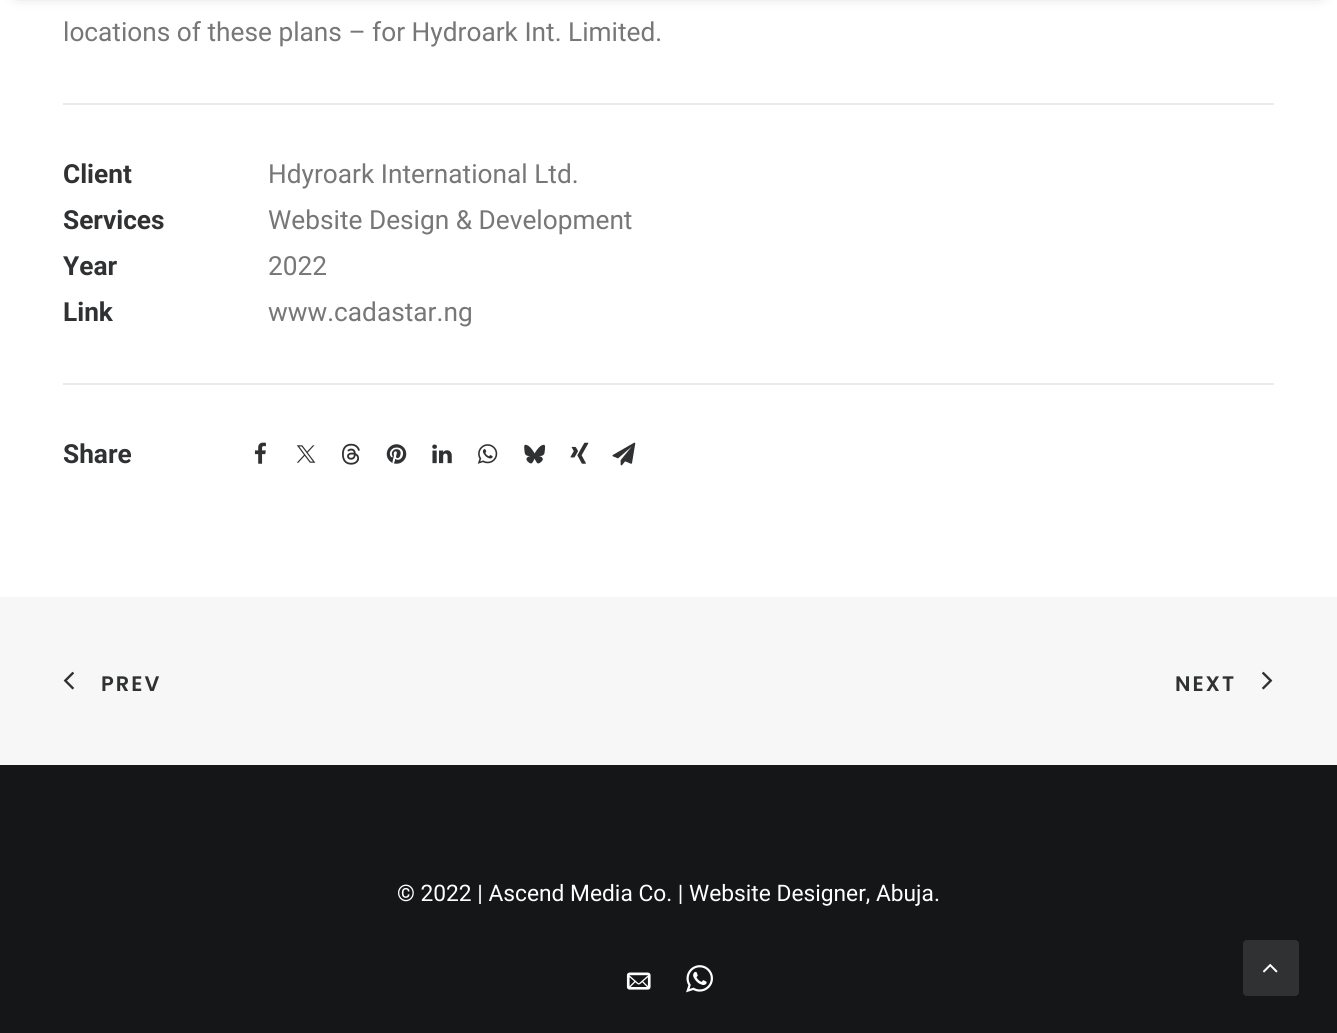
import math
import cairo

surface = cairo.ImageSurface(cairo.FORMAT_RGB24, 1337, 1033)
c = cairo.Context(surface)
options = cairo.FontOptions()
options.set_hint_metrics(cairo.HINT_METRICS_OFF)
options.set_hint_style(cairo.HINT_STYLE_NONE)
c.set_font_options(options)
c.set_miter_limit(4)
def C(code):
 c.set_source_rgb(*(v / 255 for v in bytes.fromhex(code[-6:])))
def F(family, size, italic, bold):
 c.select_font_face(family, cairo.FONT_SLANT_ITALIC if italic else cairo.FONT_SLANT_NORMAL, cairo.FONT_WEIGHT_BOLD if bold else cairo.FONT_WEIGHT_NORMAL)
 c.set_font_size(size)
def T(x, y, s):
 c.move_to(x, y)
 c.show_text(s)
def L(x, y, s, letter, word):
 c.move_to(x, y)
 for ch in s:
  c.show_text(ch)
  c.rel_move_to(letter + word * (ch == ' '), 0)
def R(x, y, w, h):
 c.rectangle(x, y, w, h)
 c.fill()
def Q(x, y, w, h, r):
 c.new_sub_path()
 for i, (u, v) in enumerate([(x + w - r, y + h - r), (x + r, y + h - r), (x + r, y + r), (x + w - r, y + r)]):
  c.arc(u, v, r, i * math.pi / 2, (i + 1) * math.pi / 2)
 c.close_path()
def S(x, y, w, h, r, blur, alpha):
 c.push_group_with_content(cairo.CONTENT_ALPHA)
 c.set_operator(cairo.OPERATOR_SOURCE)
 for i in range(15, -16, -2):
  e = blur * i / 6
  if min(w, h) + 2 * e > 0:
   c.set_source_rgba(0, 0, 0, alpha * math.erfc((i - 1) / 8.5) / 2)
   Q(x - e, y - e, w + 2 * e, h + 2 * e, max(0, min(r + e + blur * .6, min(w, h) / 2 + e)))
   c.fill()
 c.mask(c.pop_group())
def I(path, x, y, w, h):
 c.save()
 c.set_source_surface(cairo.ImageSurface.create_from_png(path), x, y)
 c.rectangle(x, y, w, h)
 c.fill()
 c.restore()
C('141618')
c.paint()
C('ffffff')
R(0,0,1337,597)
C('000000')
S(18,-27,1302,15,0,9,.6)
F('Roboto',26.25,0,0)
C('777777')
T(63,41,'locations of these plans – for Hydroark Int. Limited.')
C('eaeaea')
R(63,103,1211,2)
F('Roboto',26.25,0,1)
C('303133')
T(63,183,'Client')
F('Roboto',26.25,0,0)
C('777777')
T(268,183,'Hdyroark International Ltd.')
F('Roboto',26.25,0,1)
C('303133')
T(63,229,'Services')
F('Roboto',26.25,0,0)
C('777777')
T(268,229,'Website Design & Development')
F('Roboto',26.25,0,1)
C('303133')
T(63,275,'Year')
F('Roboto',26.25,0,0)
C('777777')
T(268,275,'2022')
F('Roboto',26.25,0,1)
C('303133')
T(63,321,'Link')
F('Roboto',26.25,0,0)
C('777777')
T(268,321,'www.cadastar.ng')
C('eaeaea')
R(63,383,1211,2)
F('Roboto',26.25,0,1)
C('303133')
T(63,463,'Share')
I('1.png',254,442,12,22)
I('2.png',296,445,20,18)
I('3.png',342,443,18,22)
I('4.png',386,444,21,20)
I('5.png',432,444,20,20)
I('6.png',477,444,21,20)
I('7.png',524,444,22,20)
I('8.png',570,442,19,22)
I('9.png',612,442,24,24)
C('f7f7f7')
R(0,597,1337,168)
I('10.png',63,671,11,19)
F('Poppins SemiBold',21,0,0)
C('303133')
L(101,691,'PREV',2,0)
L(1175,691,'NEXT',2,0)
I('11.png',1262,671,11,19)
F('Roboto',22.75,0,0)
C('ffffff')
T(397,901,'© 2022 | Ascend Media Co. | Website Designer, Abuja.')
I('12.png',626,972,25,18)
I('13.png',686,965,27,28)
C('303133')
Q(1244,941,54,54,3)
c.fill_preserve()
c.stroke()
I('14.png',1262,963,16,10)
surface.write_to_png('o.png')
